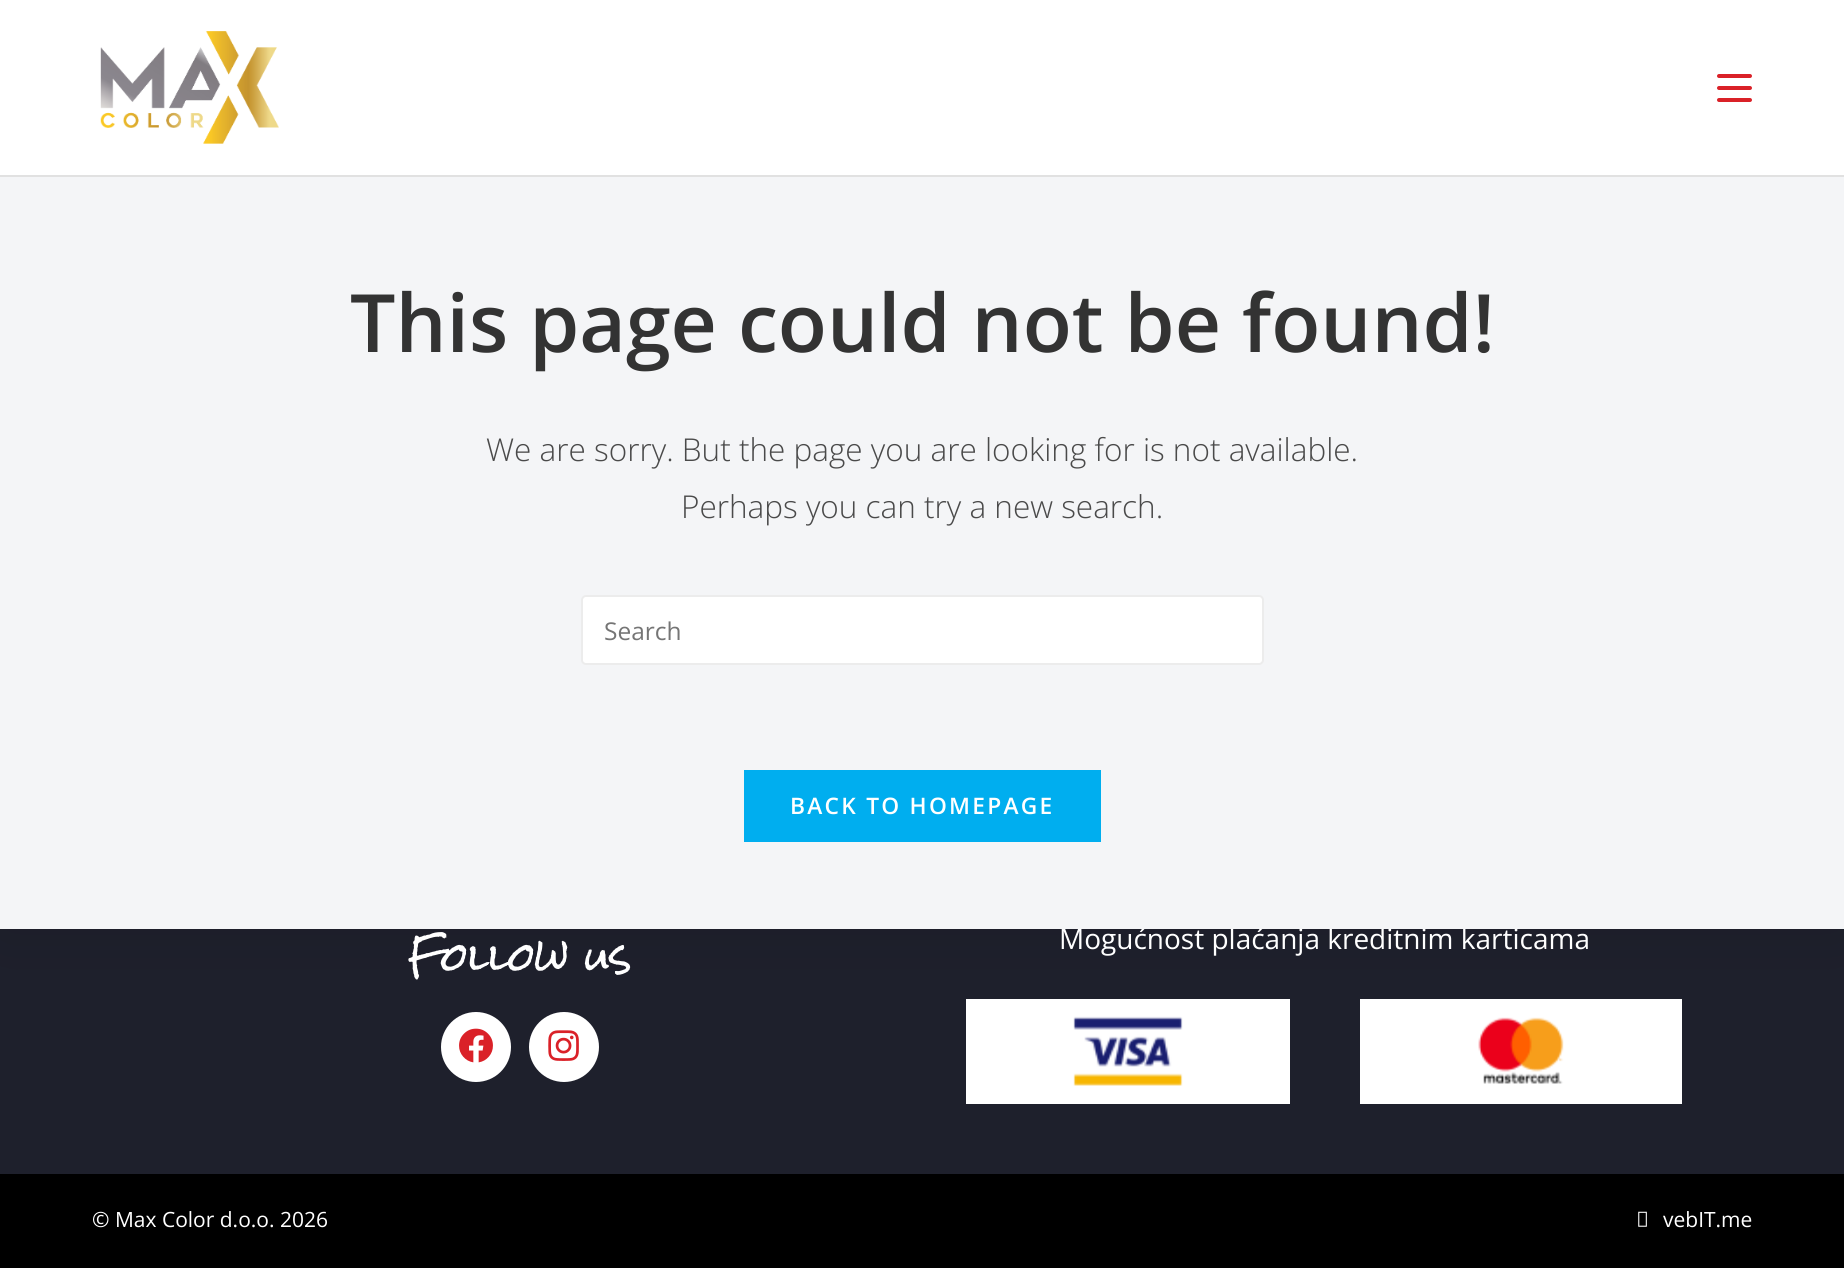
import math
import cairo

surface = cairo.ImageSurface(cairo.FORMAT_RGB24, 1844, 1268)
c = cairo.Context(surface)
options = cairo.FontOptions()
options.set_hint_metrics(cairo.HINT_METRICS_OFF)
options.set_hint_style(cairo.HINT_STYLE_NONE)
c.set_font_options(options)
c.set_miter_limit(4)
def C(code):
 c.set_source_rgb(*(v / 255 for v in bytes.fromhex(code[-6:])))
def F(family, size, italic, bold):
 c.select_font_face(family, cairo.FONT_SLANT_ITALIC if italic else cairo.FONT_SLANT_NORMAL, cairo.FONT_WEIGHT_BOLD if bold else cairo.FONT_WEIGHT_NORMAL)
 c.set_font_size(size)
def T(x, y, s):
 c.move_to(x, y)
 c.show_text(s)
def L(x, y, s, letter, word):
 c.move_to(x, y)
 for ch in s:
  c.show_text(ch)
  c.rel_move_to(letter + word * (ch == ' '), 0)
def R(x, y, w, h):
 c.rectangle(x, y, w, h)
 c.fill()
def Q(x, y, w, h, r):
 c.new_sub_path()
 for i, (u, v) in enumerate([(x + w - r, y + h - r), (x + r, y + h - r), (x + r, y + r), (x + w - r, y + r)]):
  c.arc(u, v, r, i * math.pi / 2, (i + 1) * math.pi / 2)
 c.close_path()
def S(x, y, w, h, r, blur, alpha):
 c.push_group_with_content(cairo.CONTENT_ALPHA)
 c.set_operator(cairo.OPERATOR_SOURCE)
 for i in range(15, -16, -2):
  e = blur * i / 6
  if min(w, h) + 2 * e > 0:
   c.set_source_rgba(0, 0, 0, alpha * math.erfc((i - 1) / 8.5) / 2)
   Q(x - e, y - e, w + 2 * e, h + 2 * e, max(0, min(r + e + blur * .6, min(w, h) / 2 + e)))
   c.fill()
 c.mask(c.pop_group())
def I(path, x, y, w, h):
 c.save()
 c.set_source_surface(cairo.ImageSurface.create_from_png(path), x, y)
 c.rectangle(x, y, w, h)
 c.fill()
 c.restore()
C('1e202c')
c.paint()
C('ffffff')
c.arc(476,1047,35,0,2 * math.pi)
c.fill()
I('2.png',459,1028,34,35)
c.arc(564,1047,35,0,2 * math.pi)
c.fill()
I('3.png',548,1030,31,31)
R(966,999,324,105)
I('4.png',1073,1016,110,70)
R(1360,999,322,105)
I('5.png',1478,1017,86,67)
C('000000')
S(0,177,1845,752,0,35,.1)
C('ffffff')
R(0,0,1844,175)
C('e1e1e1')
R(0,175,1844,2)
I('1.png',100,31,179,113)
C('da2128')
Q(1717,86,35,4,2)
c.fill()
Q(1717,74,35,4,2)
c.fill()
Q(1717,98,35,4,2)
c.fill()
F('Open Sans',28,0,0)
C('ffffff')
T(1059,949,'Mogućnost plaćanja kreditnim karticama')
C('f4f5f7')
R(0,177,1844,752)
F('Open Sans SemiBold',80.5,0,0)
C('333333')
T(350,352,'This page could not be found!')
F('Open Sans Light',31.5,0,0)
C('4a4a4a')
T(486,461,'We are sorry. But the page you are looking for is not available.')
T(681,518,'Perhaps you can try a new search.')
C('ffffff')
Q(582,596,681,68,4)
c.fill_preserve()
C('ececec')
c.stroke()
F('Open Sans',24.5,0,0)
C('757575')
T(604,640,'Search')
C('00aeef')
R(744,770,357,72)
F('Open Sans SemiBold',22.75,0,0)
C('ffffff')
L(790,814,'BACK TO HOMEPAGE',2.25,0)
F('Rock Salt',38.5,0,0)
T(408,972,'Follow us')
C('000000')
R(0,1174,1844,94)
F('Open Sans',21,0,0)
C('ffffff')
T(92,1227,'© Max Color d.o.o. 2026')
I('6.png',1638,1211,9,16)
T(1663,1227,'vebIT.me')
surface.write_to_png('o.png')
